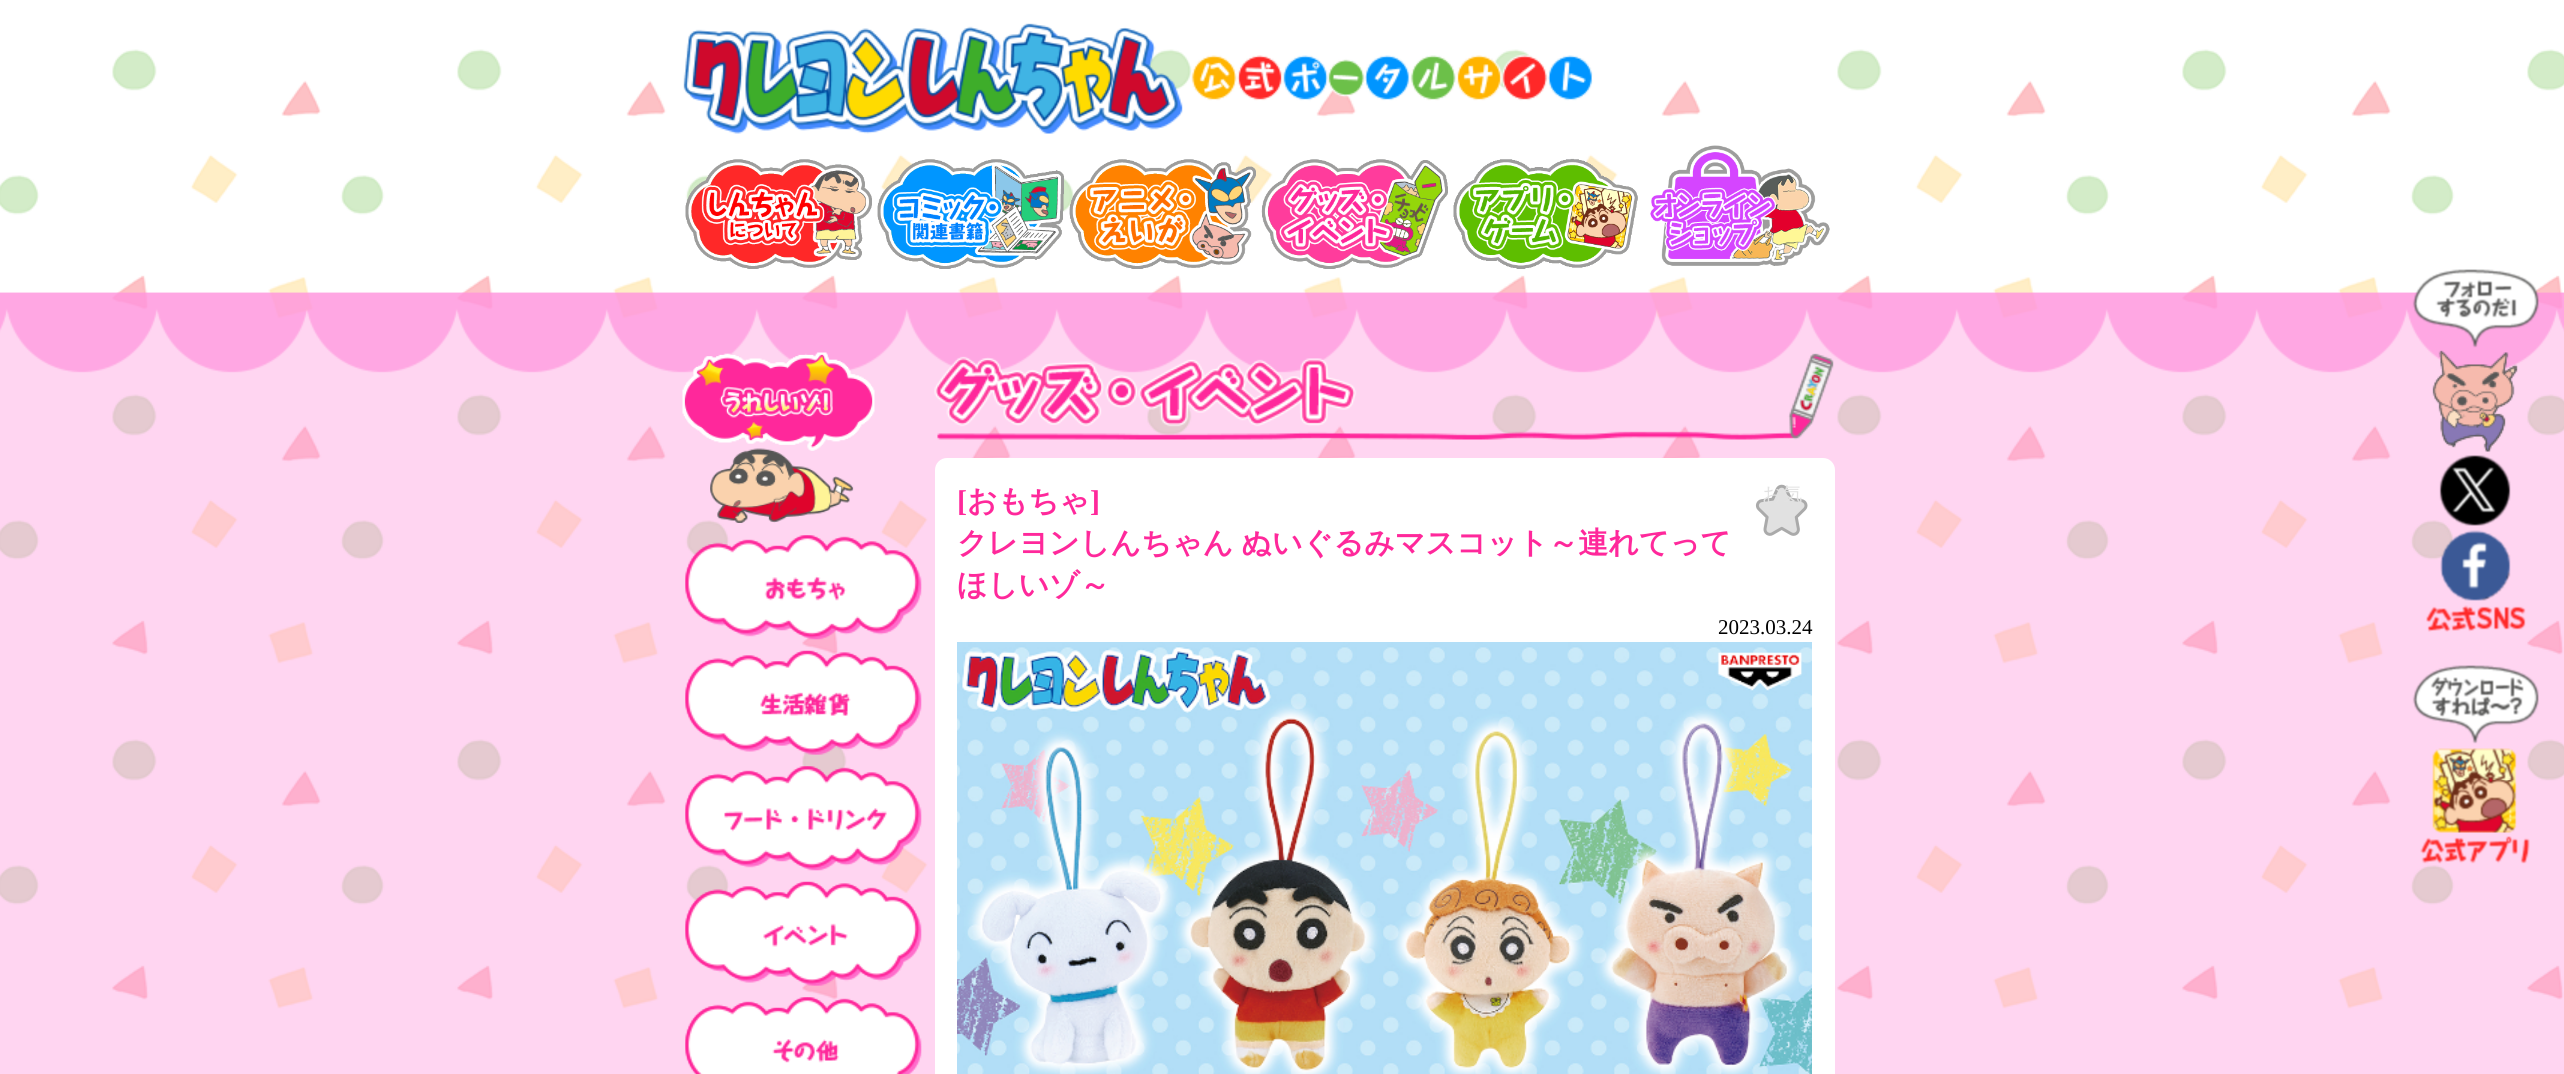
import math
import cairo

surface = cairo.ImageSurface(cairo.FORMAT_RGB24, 2564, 1074)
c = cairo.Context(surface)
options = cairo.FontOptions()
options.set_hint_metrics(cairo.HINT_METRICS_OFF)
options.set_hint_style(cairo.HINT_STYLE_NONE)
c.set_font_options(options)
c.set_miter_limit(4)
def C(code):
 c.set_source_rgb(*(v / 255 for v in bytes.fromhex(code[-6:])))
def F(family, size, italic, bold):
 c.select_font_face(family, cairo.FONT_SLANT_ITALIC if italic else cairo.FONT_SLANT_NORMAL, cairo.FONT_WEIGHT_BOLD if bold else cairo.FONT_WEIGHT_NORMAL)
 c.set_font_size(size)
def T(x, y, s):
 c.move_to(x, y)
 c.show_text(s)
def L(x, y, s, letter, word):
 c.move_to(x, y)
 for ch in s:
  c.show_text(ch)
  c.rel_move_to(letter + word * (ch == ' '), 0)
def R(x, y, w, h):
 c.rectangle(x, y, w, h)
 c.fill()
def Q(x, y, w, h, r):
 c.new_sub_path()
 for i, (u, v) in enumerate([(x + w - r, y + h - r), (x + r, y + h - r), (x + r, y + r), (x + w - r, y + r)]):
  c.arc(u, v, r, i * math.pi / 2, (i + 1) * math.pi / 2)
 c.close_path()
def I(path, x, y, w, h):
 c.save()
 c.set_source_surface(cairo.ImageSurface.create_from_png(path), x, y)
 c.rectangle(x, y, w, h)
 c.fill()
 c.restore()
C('ffffff')
c.paint()
I('1.png',0,49,2564,960)
I('2.png',683,23,910,111)
I('3.png',685,159,187,110)
I('4.png',877,159,187,110)
I('5.png',1069,159,187,110)
I('6.png',1261,159,187,110)
I('7.png',1453,158,185,111)
I('8.png',1650,145,180,121)
c.set_source_rgba(1,0.588,0.863,0.4)
R(0,293,2564,781)
I('9.png',0,292,2564,81)
I('10.png',682,352,193,171)
I('11.png',685,535,237,105)
I('12.png',685,535,237,105)
I('13.png',685,650,237,105)
I('14.png',685,650,237,105)
I('15.png',685,766,237,105)
I('16.png',685,766,237,105)
I('17.png',685,881,237,105)
I('18.png',685,881,237,105)
I('19.png',685,997,237,77)
I('20.png',685,997,237,77)
I('21.png',934,353,900,87)
C('ffffff')
Q(935,458,900,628,12)
c.fill()
F('Liberation Serif',30,0,1)
C('ff289b')
T(957,511,'[')
F('WenQuanYi Zen Hei',30,0,1)
T(967,511,'おもちゃ')
F('Liberation Serif',30,0,1)
T(1090,511,']')
F('WenQuanYi Zen Hei',30,0,1)
L(957,553,'クレヨンしんちゃん ぬいぐるみマスコット～連れてって',0,-1)
T(957,595,'ほしいゾ～')
I('22.png',1755,484,53,52)
F('WenQuanYi Zen Hei Medium',20,0,0)
C('e2e2e2')
T(1762,501,'お気')
F('Liberation Serif',21,0,0)
C('000000')
T(1718,634,'2023.03.24')
I('23.png',957,642,855,432)
I('24.png',2412,269,127,79)
I('25.png',2432,350,86,102)
I('26.png',2439,455,72,71)
I('27.png',2440,530,71,71)
I('28.png',2426,605,100,27)
I('29.png',2412,665,127,79)
I('30.png',2432,748,85,85)
I('31.png',2420,836,110,28)
surface.write_to_png('o.png')
